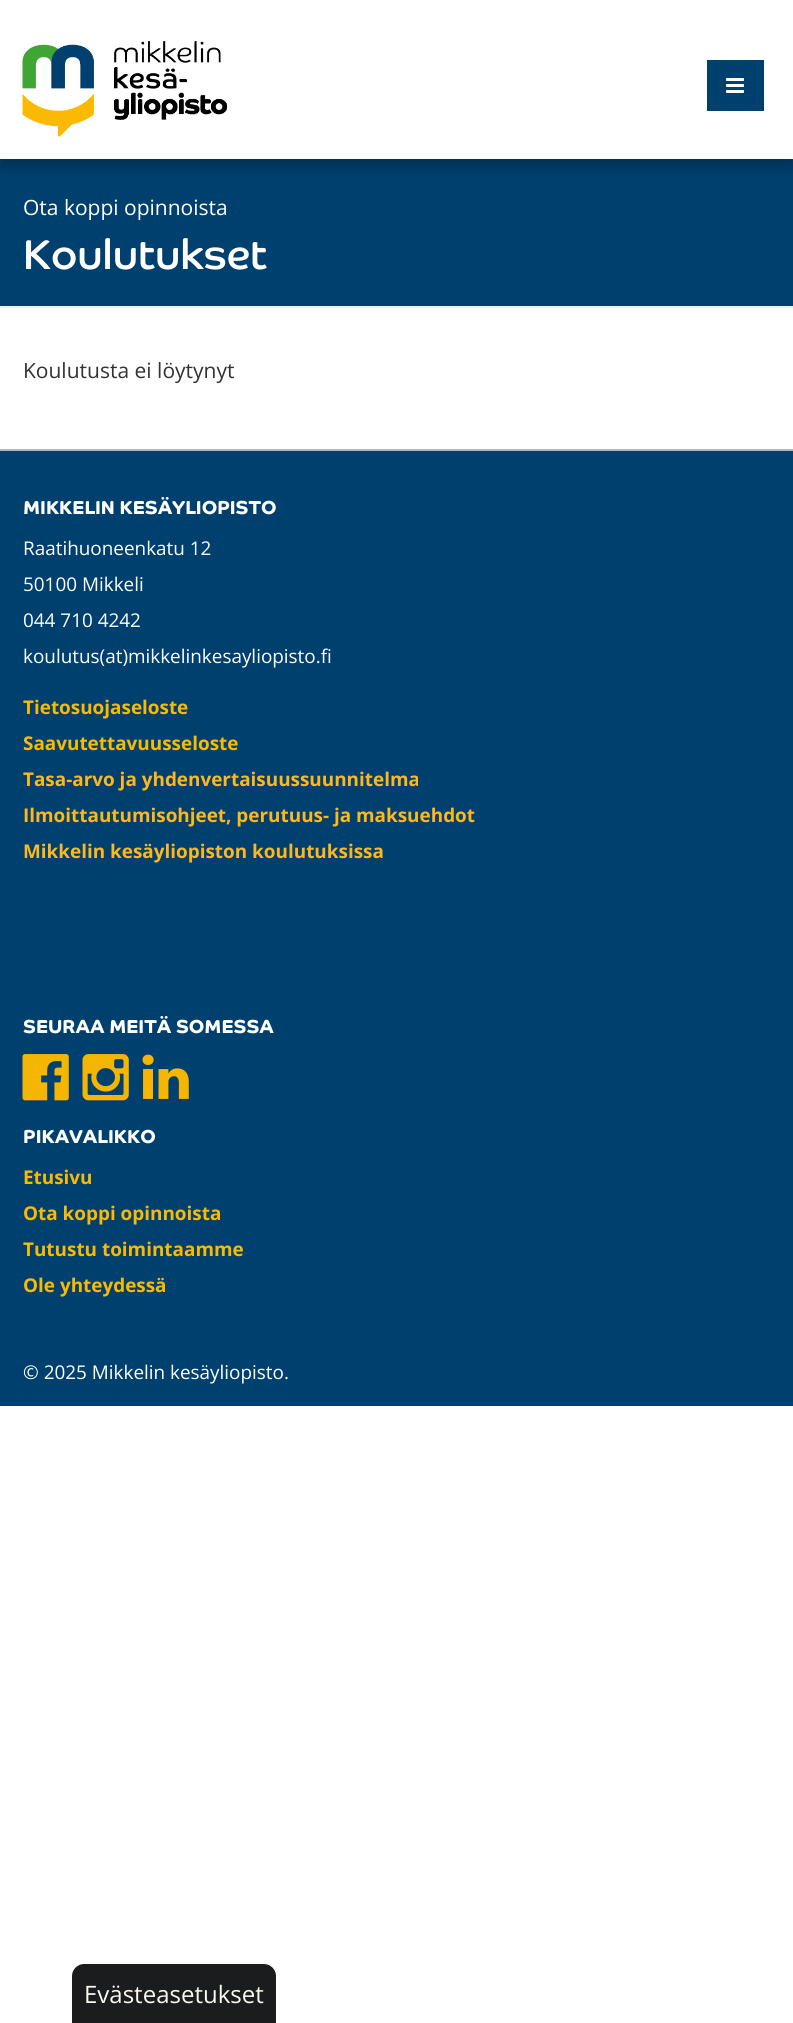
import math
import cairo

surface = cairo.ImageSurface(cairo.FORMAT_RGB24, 793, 2023)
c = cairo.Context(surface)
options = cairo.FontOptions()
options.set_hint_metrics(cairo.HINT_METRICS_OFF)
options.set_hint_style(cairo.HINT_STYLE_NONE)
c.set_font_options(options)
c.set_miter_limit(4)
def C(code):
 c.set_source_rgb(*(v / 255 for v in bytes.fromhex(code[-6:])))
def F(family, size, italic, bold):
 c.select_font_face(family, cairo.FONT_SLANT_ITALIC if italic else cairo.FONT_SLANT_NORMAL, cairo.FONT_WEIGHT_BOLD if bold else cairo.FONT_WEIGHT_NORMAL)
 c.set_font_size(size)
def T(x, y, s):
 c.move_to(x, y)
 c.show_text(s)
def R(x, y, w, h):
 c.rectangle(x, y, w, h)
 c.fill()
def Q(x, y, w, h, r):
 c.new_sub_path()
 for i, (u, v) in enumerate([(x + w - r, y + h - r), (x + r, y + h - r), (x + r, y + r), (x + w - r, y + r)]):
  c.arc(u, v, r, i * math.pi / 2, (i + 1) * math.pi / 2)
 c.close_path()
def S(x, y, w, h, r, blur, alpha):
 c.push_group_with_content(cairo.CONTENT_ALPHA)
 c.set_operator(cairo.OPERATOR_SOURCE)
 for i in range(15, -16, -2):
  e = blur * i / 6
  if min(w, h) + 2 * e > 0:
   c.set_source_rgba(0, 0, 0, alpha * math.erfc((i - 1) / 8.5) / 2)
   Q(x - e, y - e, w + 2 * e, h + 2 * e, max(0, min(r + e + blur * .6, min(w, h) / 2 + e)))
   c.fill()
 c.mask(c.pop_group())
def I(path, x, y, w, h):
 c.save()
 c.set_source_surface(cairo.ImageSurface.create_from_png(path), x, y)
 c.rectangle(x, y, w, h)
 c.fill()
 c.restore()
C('ffffff')
c.paint()
C('00406f')
R(0,159,793,147)
c.save()
c.rectangle(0,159,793,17)
c.clip()
C('000000')
S(0,9,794,159,0,6,.21)
c.restore()
I('1.png',22,41,206,96)
R(707,60,57,51)
I('2.png',726,78,18,15)
C('eeeeee')
R(0,306,793,2)
F('Open Sans',21,0,0)
C('ffffff')
T(23,215,'Ota koppi opinnoista')
F('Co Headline',42,0,0)
T(23,269,'Koulutukset')
F('Open Sans',21,0,0)
C('333333')
T(23,378,'Koulutusta ei löytynyt')
C('00406f')
R(0,451,793,955)
C('b6b6b6')
R(0,449,793,2)
F('Co Headline',18.9,0,1)
C('ffffff')
T(23,514,'MIKKELIN KESÄYLIOPISTO')
F('Open Sans',18.9,0,0)
T(23,555,'Raatihuoneenkatu 12')
T(23,591,'50100 Mikkeli')
T(23,627,'044 710 4242')
T(23,663,'koulutus(at)mikkelinkesayliopisto.fi')
F('Open Sans',18.9,0,1)
C('fbb900')
T(23,714,'Tietosuojaseloste')
T(23,750,'Saavutettavuusseloste')
C('ffb71b')
T(23,786,'Tasa-arvo ja yhdenvertaisuussuunnitelma')
T(23,822,'Ilmoittautumisohjeet, perutuus- ja maksuehdot')
T(23,858,'Mikkelin kesäyliopiston koulutuksissa')
F('Co Headline',18.9,0,1)
C('ffffff')
T(23,1033,'SEURAA MEITÄ SOMESSA')
I('3.png',22,1054,47,47)
I('4.png',82,1054,47,47)
I('5.png',142,1054,47,45)
T(23,1143,'PIKAVALIKKO')
F('Open Sans',18.9,0,1)
C('fbb900')
T(23,1184,'Etusivu')
T(23,1220,'Ota koppi opinnoista')
T(23,1256,'Tutustu toimintaamme')
T(23,1292,'Ole yhteydessä')
F('Open Sans',18.9,0,0)
C('ffffff')
T(23,1379,'© 2025 Mikkelin kesäyliopisto.')
C('1b1c1e')
c.new_path()
c.move_to(84,1964)
c.line_to(264,1964)
c.curve_to(270.5,1964,276,1969.5,276,1976)
c.line_to(276,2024)
c.line_to(72,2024)
c.line_to(72,1976)
c.curve_to(72,1969.5,77.5,1964,84,1964)
c.close_path()
c.fill()
F('Open Sans',24,0,0)
C('fbf9f2')
T(84,2003,'Evästeasetukset')
surface.write_to_png('o.png')
